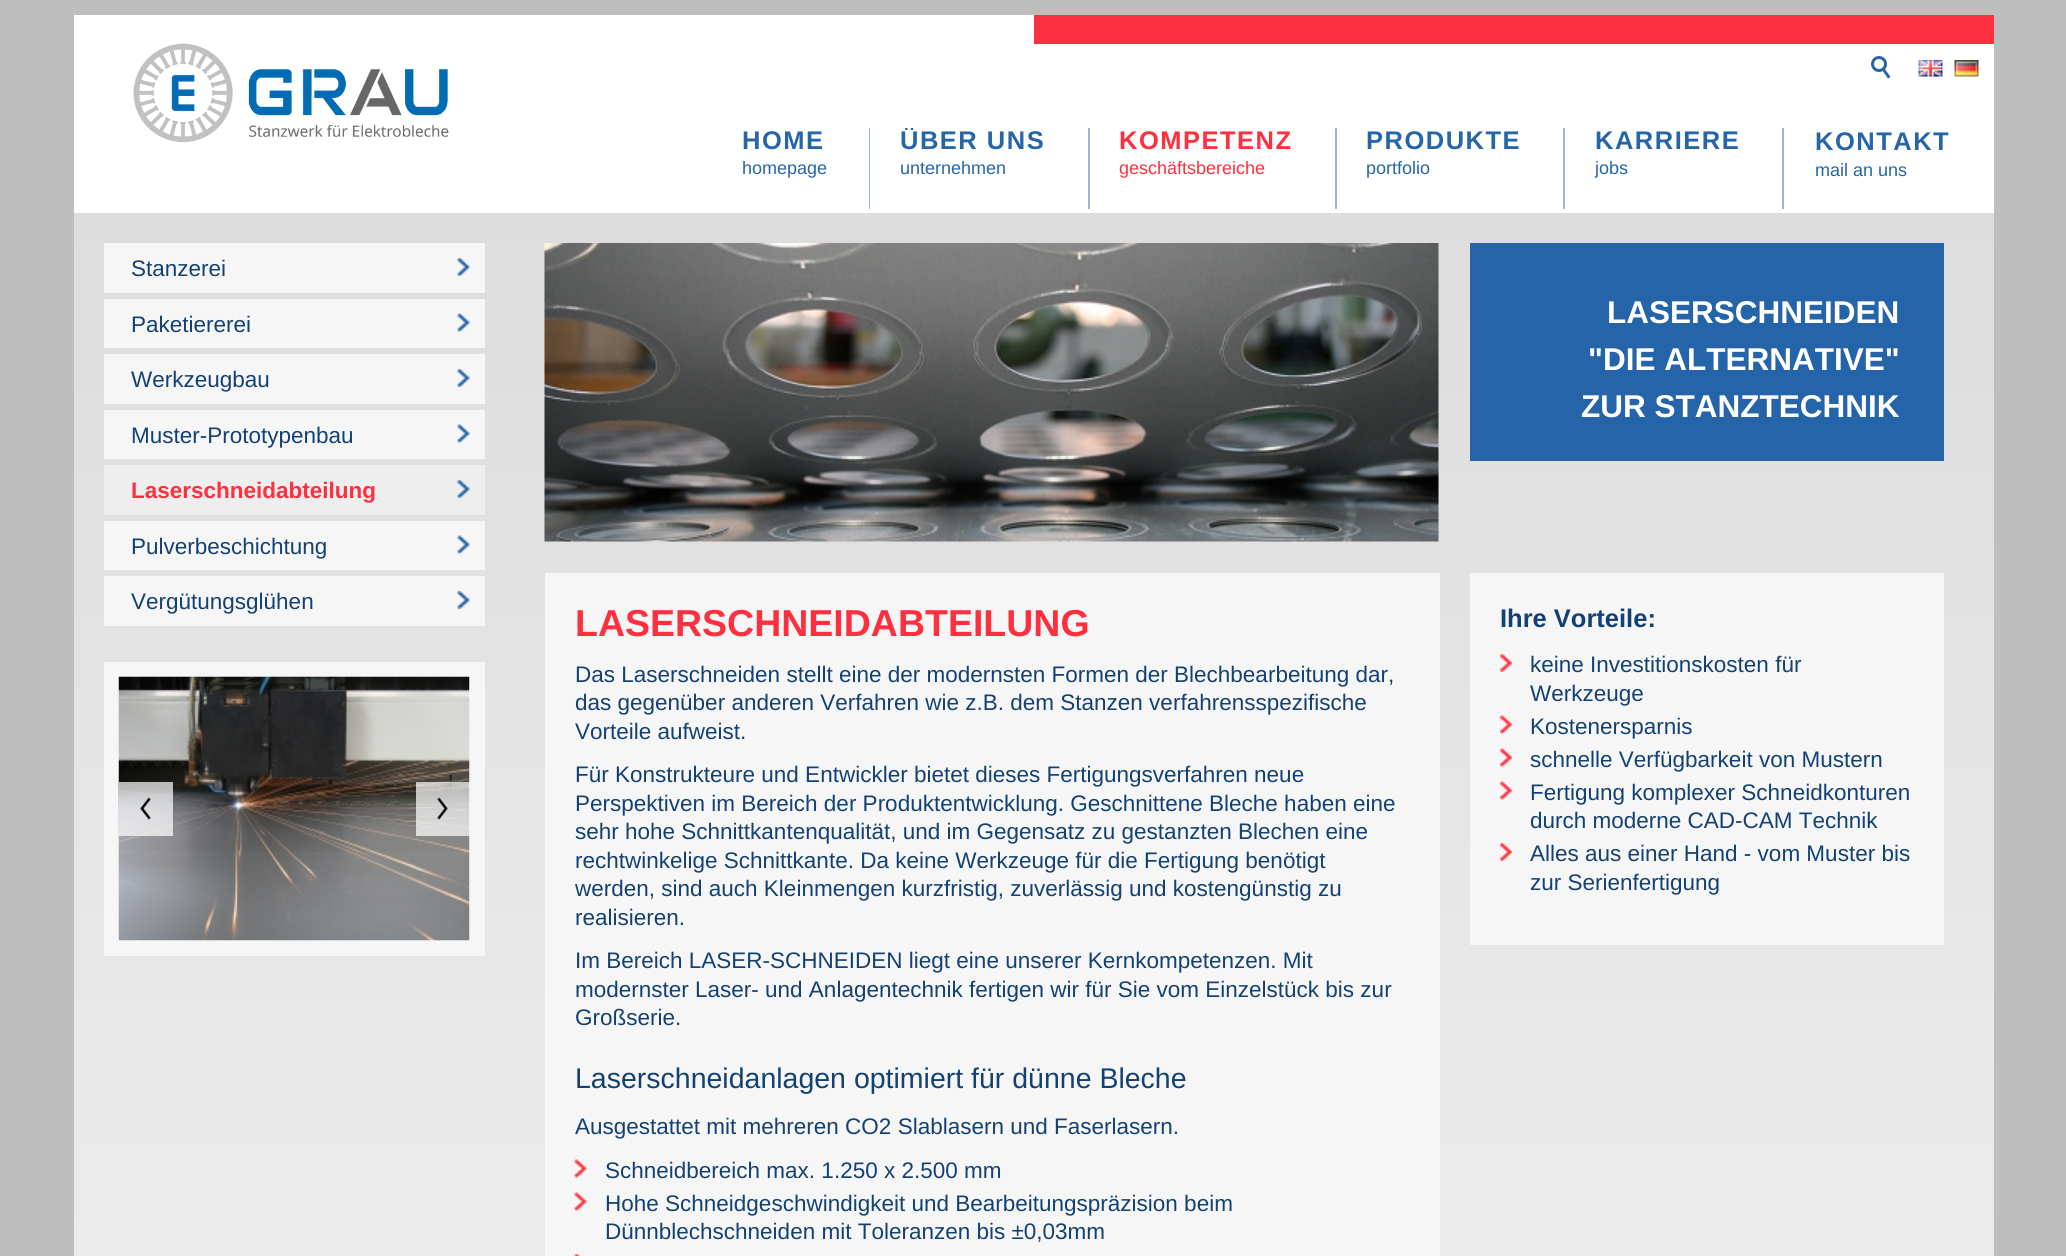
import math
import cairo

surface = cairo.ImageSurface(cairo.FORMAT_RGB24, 2066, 1256)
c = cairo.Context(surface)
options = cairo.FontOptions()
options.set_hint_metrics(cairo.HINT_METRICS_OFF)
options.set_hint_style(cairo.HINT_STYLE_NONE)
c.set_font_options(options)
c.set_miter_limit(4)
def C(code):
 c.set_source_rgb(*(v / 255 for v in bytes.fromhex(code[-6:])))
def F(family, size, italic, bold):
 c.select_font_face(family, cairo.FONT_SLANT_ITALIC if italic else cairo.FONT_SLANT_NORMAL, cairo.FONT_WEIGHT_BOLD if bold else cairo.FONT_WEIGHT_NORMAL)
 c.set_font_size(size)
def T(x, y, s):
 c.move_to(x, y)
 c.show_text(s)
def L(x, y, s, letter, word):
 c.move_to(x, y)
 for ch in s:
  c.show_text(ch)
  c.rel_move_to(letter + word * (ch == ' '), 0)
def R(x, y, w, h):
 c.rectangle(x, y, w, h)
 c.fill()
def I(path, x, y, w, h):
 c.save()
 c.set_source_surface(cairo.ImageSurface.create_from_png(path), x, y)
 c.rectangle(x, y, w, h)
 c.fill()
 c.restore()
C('bebebe')
c.paint()
C('ffffff')
R(74,15,1920,198)
C('fe2f3e')
R(1034,15,960,29)
I('1.png',133,43,316,100)
c.arc(1879,64,6.5,0,2 * math.pi)
C('2765a9')
c.set_line_width(3)
c.stroke()
c.new_path()
c.move_to(1884.5,68.5)
c.line_to(1890.5,77)
c.line_to(1888,78.5)
c.line_to(1882,70)
c.close_path()
c.fill()
I('2.png',1918,60,25,17)
I('3.png',1954,60,25,17)
C('9bb7d6')
R(869,128,1,81)
F('Liberation Sans',25.5,0,1)
C('2765a9')
L(742,149,'HOME',1.5,0)
F('Liberation Sans',18,0,0)
T(742,174,'homepage')
C('9bb7d6')
R(1088,128,2,81)
c.save()
c.rectangle(870,128,218,81)
c.clip()
F('Liberation Sans',25.5,0,1)
C('2765a9')
L(900,149,'ÜBER UNS',1.5,0)
c.restore()
C('2765a9')
T(900,174,'unternehmen')
C('9bb7d6')
R(1335,128,2,81)
F('Liberation Sans',25.5,0,1)
C('fe2f3e')
L(1119,149,'KOMPETENZ',1.5,0)
F('Liberation Sans',18,0,0)
T(1119,174,'geschäftsbereiche')
C('9bb7d6')
R(1563,128,2,81)
F('Liberation Sans',25.5,0,1)
C('2765a9')
L(1366,149,'PRODUKTE',1.5,0)
F('Liberation Sans',18,0,0)
T(1366,174,'portfolio')
C('9bb7d6')
R(1782,128,2,81)
F('Liberation Sans',25.5,0,1)
C('2765a9')
L(1595,149,'KARRIERE',1.5,0)
F('Liberation Sans',18,0,0)
T(1595,174,'jobs')
F('Liberation Sans',25.5,0,1)
L(1815,150,'KONTAKT',1.5,0)
F('Liberation Sans',18,0,0)
T(1815,176,'mail an uns')
gradient = cairo.LinearGradient(1034,213,1034,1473)
gradient.add_color_stop_rgba(0,0.867,0.867,0.867,1)
gradient.add_color_stop_rgba(1,0.933,0.933,0.933,1)
c.set_source(gradient)
R(74,213,1920,1043)
C('f6f6f6')
R(104,243,381,50)
I('4.png',457,258,13,18)
F('Liberation Sans',22.5,0,0)
C('134174')
T(131,276,'Stanzerei')
C('f6f6f6')
R(104,299,381,49)
I('5.png',457,313,13,19)
C('134174')
T(131,332,'Paketiererei')
C('f6f6f6')
R(104,354,381,50)
I('4.png',457,369,13,18)
C('134174')
T(131,387,'Werkzeugbau')
C('f6f6f6')
R(104,410,381,49)
I('5.png',457,424,13,19)
C('134174')
T(131,443,'Muster-Prototypenbau')
C('eeeeee')
R(104,465,381,50)
I('6.png',457,480,13,18)
F('Liberation Sans',22.5,0,1)
C('fe2f3e')
T(131,498,'Laserschneidabteilung')
C('f6f6f6')
R(104,521,381,49)
I('5.png',457,535,13,19)
F('Liberation Sans',22.5,0,0)
C('134174')
T(131,554,'Pulverbeschichtung')
C('f6f6f6')
R(104,576,381,50)
I('4.png',457,591,13,18)
C('134174')
T(131,609,'Vergütungsglühen')
C('f6f6f6')
R(104,662,381,294)
I('7.png',118,676,352,265)
c.set_source_rgba(1,1,1,0.7)
R(119,782,54,54)
I('8.png',140,797,11,23)
R(416,782,54,54)
I('9.png',437,797,11,23)
I('10.png',544,243,895,299)
C('2664a9')
R(1470,243,474,218)
F('Liberation Sans',31.5,0,1)
C('ffffff')
T(1607,323,'LASERSCHNEIDEN')
T(1588,370,'"DIE ALTERNATIVE"')
T(1581,417,'ZUR STANZTECHNIK')
C('f6f6f6')
R(545,573,895,683)
F('Liberation Sans',37.5,0,1)
C('fe2f3e')
T(575,636,'LASERSCHNEIDABTEILUNG')
F('Liberation Sans',22.5,0,0)
C('134174')
T(575,682,'Das Laserschneiden stellt eine der modernsten Formen der Blechbearbeitung dar,')
T(575,710,'das gegenüber anderen Verfahren wie z.B. dem Stanzen verfahrensspezifische')
T(575,739,'Vorteile aufweist.')
T(575,782,'Für Konstrukteure und Entwickler bietet dieses Fertigungsverfahren neue')
T(575,811,'Perspektiven im Bereich der Produktentwicklung. Geschnittene Bleche haben eine')
T(575,839,'sehr hohe Schnittkantenqualität, und im Gegensatz zu gestanzten Blechen eine')
T(575,868,'rechtwinkelige Schnittkante. Da keine Werkzeuge für die Fertigung benötigt')
T(575,896,'werden, sind auch Kleinmengen kurzfristig, zuverlässig und kostengünstig zu')
T(575,925,'realisieren.')
T(575,968,'Im Bereich LASER-SCHNEIDEN liegt eine unserer Kernkompetenzen. Mit')
T(575,997,'modernster Laser- und Anlagentechnik fertigen wir für Sie vom Einzelstück bis zur')
T(575,1025,'Großserie.')
F('Liberation Sans',28.5,0,0)
T(575,1088,'Laserschneidanlagen optimiert für dünne Bleche')
F('Liberation Sans',22.5,0,0)
T(575,1134,'Ausgestattet mit mehreren CO2 Slablasern und Faserlasern.')
I('11.png',574,1159,13,19)
T(605,1178,'Schneidbereich max. 1.250 x 2.500 mm')
I('11.png',574,1192,13,19)
T(605,1211,'Hohe Schneidgeschwindigkeit und Bearbeitungspräzision beim')
T(605,1239,'Dünnblechschneiden mit Toleranzen bis ±0,03mm')
I('12.png',574,1254,7,2)
C('f6f6f6')
R(1470,573,474,372)
F('Liberation Sans',25.5,0,1)
C('134174')
T(1500,627,'Ihre Vorteile:')
I('13.png',1500,654,12,18)
F('Liberation Sans',22.5,0,0)
T(1530,672,'keine Investitionskosten für')
T(1530,701,'Werkzeuge')
I('14.png',1500,715,12,19)
T(1530,734,'Kostenersparnis')
I('14.png',1500,748,12,19)
T(1530,767,'schnelle Verfügbarkeit von Mustern')
I('14.png',1500,781,12,19)
T(1530,800,'Fertigung komplexer Schneidkonturen')
T(1530,828,'durch moderne CAD-CAM Technik')
I('13.png',1500,843,12,18)
T(1530,861,'Alles aus einer Hand - vom Muster bis')
T(1530,890,'zur Serienfertigung')
surface.write_to_png('o.png')
